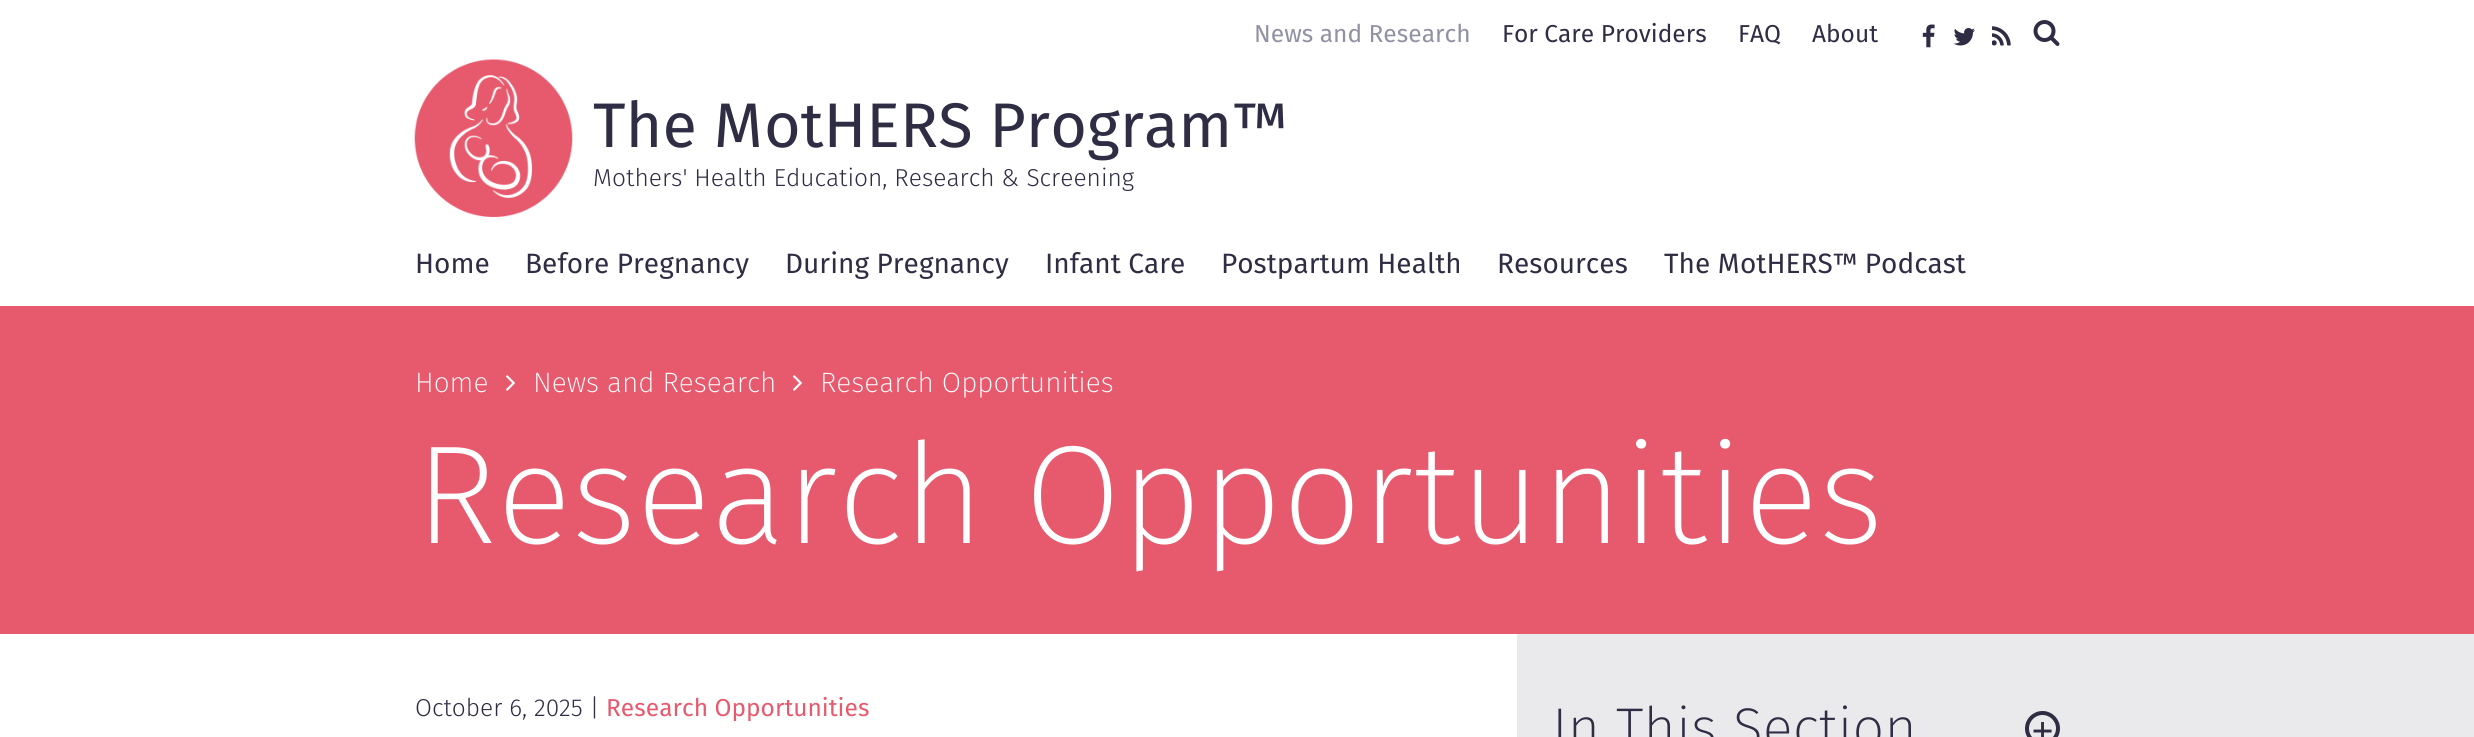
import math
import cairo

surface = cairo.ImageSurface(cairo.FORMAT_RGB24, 2474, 737)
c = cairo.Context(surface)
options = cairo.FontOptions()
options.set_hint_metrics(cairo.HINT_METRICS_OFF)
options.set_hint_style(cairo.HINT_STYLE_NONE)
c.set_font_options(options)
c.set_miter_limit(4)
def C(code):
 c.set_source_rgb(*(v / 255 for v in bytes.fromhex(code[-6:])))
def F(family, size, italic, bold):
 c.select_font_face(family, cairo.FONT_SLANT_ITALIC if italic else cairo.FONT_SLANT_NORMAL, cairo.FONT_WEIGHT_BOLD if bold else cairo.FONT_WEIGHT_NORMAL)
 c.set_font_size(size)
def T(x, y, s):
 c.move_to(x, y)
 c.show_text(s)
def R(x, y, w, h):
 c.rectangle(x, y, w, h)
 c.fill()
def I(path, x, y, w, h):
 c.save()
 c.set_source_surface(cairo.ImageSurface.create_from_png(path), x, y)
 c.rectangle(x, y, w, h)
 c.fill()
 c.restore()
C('ffffff')
c.paint()
F('Fira Sans',24.5,0,0)
C('9191a4')
T(1254,42,'News and Research')
C('2f2d44')
T(1502,42,'For Care Providers')
T(1738,42,'FAQ')
T(1812,42,'About')
I('1.png',1922,24,13,24)
I('2.png',1953,28,22,18)
I('3.png',1992,26,19,20)
I('4.png',2033,20,27,26)
I('5.png',414,59,159,158)
F('Fira Sans',63,0,0)
T(593,147,'The MotHERS Program™')
F('Fira Sans Light',24.5,0,0)
T(593,186,'Mothers\' Health Education, Research & Screening')
F('Fira Sans',28,0,0)
T(415,273,'Home')
T(525,273,'Before Pregnancy')
T(785,273,'During Pregnancy')
T(1045,273,'Infant Care')
T(1221,273,'Postpartum Health')
T(1497,273,'Resources')
T(1664,273,'The MotHERS™ Podcast')
C('e75a6e')
R(0,306,2474,328)
F('Fira Sans ExtraLight',28,0,0)
C('ffffff')
T(415,392,'Home')
I('6.png',506,375,9,16)
T(533,392,'News and Research')
I('6.png',793,375,9,16)
T(820,392,'Research Opportunities')
F('Fira Sans ExtraLight',140,0,0)
T(415,543,'Research Opportunities')
C('eaeaec')
R(1517,634,957,103)
F('Fira Sans Light',24.5,0,0)
C('2f2d44')
T(415,716,'October 6, 2025 |')
F('Fira Sans',24.5,0,0)
C('e75a6e')
T(606,716,'Research Opportunities')
F('Fira Sans ExtraLight',56,0,0)
C('2f2d44')
T(1552,747,'In This Section')
c.new_path()
c.arc(2042.5,728.5,15.5,0,2 * math.pi)
c.set_line_width(4)
c.stroke()
F('DejaVu Sans Mono',35,0,0)
T(2032,742,'+')
surface.write_to_png('o.png')
